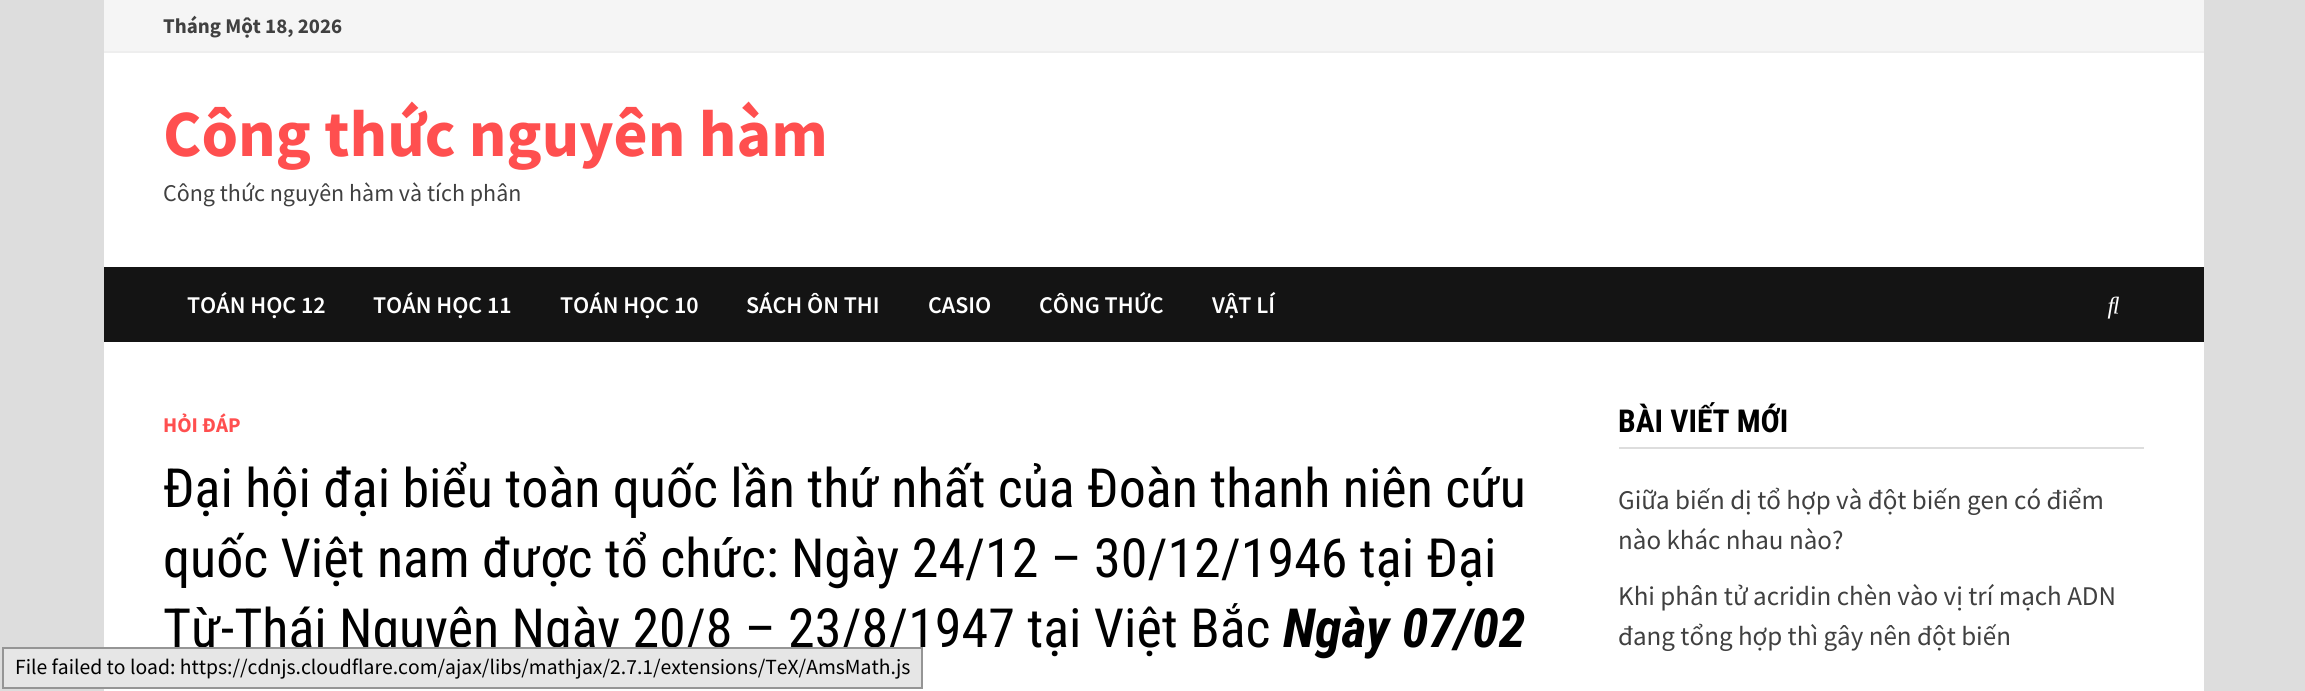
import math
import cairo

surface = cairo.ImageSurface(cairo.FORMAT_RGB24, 2305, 691)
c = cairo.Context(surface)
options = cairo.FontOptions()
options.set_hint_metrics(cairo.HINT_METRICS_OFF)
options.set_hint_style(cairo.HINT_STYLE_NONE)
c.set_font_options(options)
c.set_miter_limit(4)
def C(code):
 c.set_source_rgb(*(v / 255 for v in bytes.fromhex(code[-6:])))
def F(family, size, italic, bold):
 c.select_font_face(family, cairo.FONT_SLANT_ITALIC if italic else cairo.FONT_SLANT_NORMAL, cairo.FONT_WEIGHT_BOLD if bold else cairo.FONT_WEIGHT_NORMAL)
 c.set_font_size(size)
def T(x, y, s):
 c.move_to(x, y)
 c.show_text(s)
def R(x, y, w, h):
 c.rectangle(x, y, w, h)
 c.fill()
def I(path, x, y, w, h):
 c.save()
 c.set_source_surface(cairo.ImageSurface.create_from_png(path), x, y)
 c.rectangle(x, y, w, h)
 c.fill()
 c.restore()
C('dddddd')
c.paint()
C('ffffff')
R(104,53,2100,638)
C('f5f5f5')
R(104,0,2100,51)
C('eeeeee')
R(104,51,2100,2)
F('Source Sans Pro',21,0,1)
C('404040')
T(163,33,'Tháng Một 18, 2026')
F('Source Sans Pro',66,0,1)
C('ff4f4f')
T(163,156,'Công thức nguyên hàm')
F('Source Sans Pro',24,0,0)
C('404040')
T(163,201,'Công thức nguyên hàm và tích phân')
C('141414')
R(104,267,2100,75)
F('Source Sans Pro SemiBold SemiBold',24,0,0)
C('ffffff')
T(187,313,'TOÁN HỌC 12')
T(373,313,'TOÁN HỌC 11')
T(560,313,'TOÁN HỌC 10')
T(746,313,'SÁCH ÔN THI')
T(928,313,'CASIO')
T(1039,313,'CÔNG THỨC')
T(1212,313,'VẬT LÍ')
I('1.png',2107,296,12,23)
F('Source Sans Pro',21,0,1)
C('ff4f4f')
T(163,432,'HỎI ĐÁP')
F('Roboto Condensed',54,0,0)
C('000000')
T(163,507,'Đại hội đại biểu toàn quốc lần thứ nhất của Đoàn thanh niên cứu')
T(163,577,'quốc Việt nam được tổ chức: Ngày 24/12 – 30/12/1946 tại Đại')
T(163,647,'Từ-Thái Nguyên Ngày 20/8 – 23/8/1947 tại Việt Bắc')
F('Roboto Condensed',54,1,1)
T(1283,647,'Ngày 07/02')
C('dddddd')
R(1619,447,525,2)
F('Roboto Condensed',31.5,0,1)
C('000000')
T(1618,432,'BÀI VIẾT MỚI')
F('Source Sans Pro',27,0,0)
C('404040')
T(1618,509,'Giữa biến dị tổ hợp và đột biến gen có điểm')
T(1618,549,'nào khác nhau nào?')
T(1618,605,'Khi phân tử acridin chèn vào vị trí mạch ADN')
T(1618,645,'đang tổng hợp thì gây nên đột biến')
C('e6e6e6')
c.rectangle(3,648,919,40)
c.fill_preserve()
C('959595')
c.stroke()
F('Source Sans Pro',21.6,0,0)
C('000000')
T(15,674,'File failed to load: https://cdnjs.cloudflare.com/ajax/libs/mathjax/2.7.1/extensions/TeX/AmsMath.js')
surface.write_to_png('o.png')
